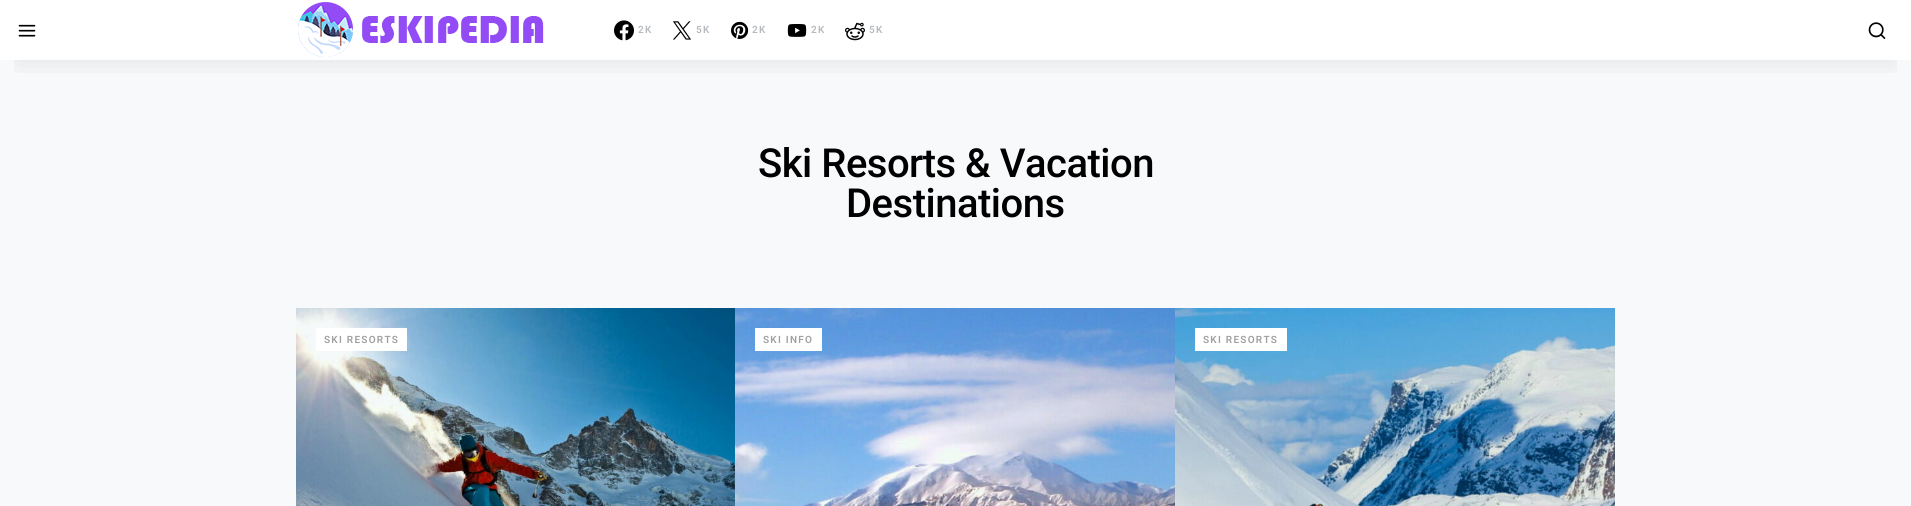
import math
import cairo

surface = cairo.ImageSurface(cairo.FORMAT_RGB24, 1911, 506)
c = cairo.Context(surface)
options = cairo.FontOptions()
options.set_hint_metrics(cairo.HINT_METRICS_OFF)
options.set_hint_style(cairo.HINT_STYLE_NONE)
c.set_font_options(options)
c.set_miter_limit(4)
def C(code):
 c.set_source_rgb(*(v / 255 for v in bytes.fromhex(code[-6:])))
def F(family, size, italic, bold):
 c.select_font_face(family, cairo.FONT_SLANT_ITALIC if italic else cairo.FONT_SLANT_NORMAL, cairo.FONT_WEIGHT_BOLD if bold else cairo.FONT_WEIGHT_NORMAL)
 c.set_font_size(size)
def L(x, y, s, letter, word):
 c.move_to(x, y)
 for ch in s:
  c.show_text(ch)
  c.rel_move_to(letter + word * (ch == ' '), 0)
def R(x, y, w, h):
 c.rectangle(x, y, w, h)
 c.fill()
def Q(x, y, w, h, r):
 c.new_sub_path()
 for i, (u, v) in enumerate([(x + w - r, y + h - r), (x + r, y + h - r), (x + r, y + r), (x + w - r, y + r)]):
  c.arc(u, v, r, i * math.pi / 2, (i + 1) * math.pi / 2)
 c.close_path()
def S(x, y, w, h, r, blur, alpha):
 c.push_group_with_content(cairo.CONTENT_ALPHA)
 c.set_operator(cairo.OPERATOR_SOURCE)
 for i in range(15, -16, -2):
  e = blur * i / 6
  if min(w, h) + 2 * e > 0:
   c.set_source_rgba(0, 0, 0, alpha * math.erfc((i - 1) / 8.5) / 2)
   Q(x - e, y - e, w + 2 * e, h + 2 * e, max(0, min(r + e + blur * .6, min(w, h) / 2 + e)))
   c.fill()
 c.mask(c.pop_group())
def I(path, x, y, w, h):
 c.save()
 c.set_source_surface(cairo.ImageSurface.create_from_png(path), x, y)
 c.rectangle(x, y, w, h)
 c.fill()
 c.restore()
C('f8f9fa')
c.paint()
C('ffffff')
R(0,0,1911,60)
c.save()
c.rectangle(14,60,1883,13)
c.clip()
C('000000')
S(16,32,1879,28,0,16,.1)
c.restore()
I('1.png',18,24,18,13)
I('2.png',298,2,246,55)
I('3.png',614,20,20,21)
F('Roboto SemiBold',10,0,0)
C('b6babe')
L(638,33,'2K',1.25,0)
I('4.png',673,21,18,19)
L(696,33,'5K',1.25,0)
I('5.png',731,21,18,18)
L(752,33,'2K',1.25,0)
I('6.png',787,24,20,13)
L(811,33,'2K',1.25,0)
I('7.png',845,22,20,19)
L(869,33,'5K',1.25,0)
I('8.png',1868,22,18,17)
F('Roboto Medium',40,0,0)
C('000000')
L(758,177,'Ski Resorts & Vacation',-.5,0)
L(846,217,'Destinations',-.5,0)
I('9.png',296,308,439,198)
C('ffffff')
R(316,328,91,23)
F('Roboto SemiBold',10,0,0)
C('a0a0a0')
L(324,343,'SKI RESORTS',1.25,0)
I('10.png',735,308,440,198)
C('ffffff')
R(755,328,67,23)
C('a0a0a0')
L(763,343,'SKI INFO',1.25,0)
I('11.png',1175,308,440,198)
C('ffffff')
R(1195,328,92,23)
C('a0a0a0')
L(1203,343,'SKI RESORTS',1.25,0)
surface.write_to_png('o.png')
